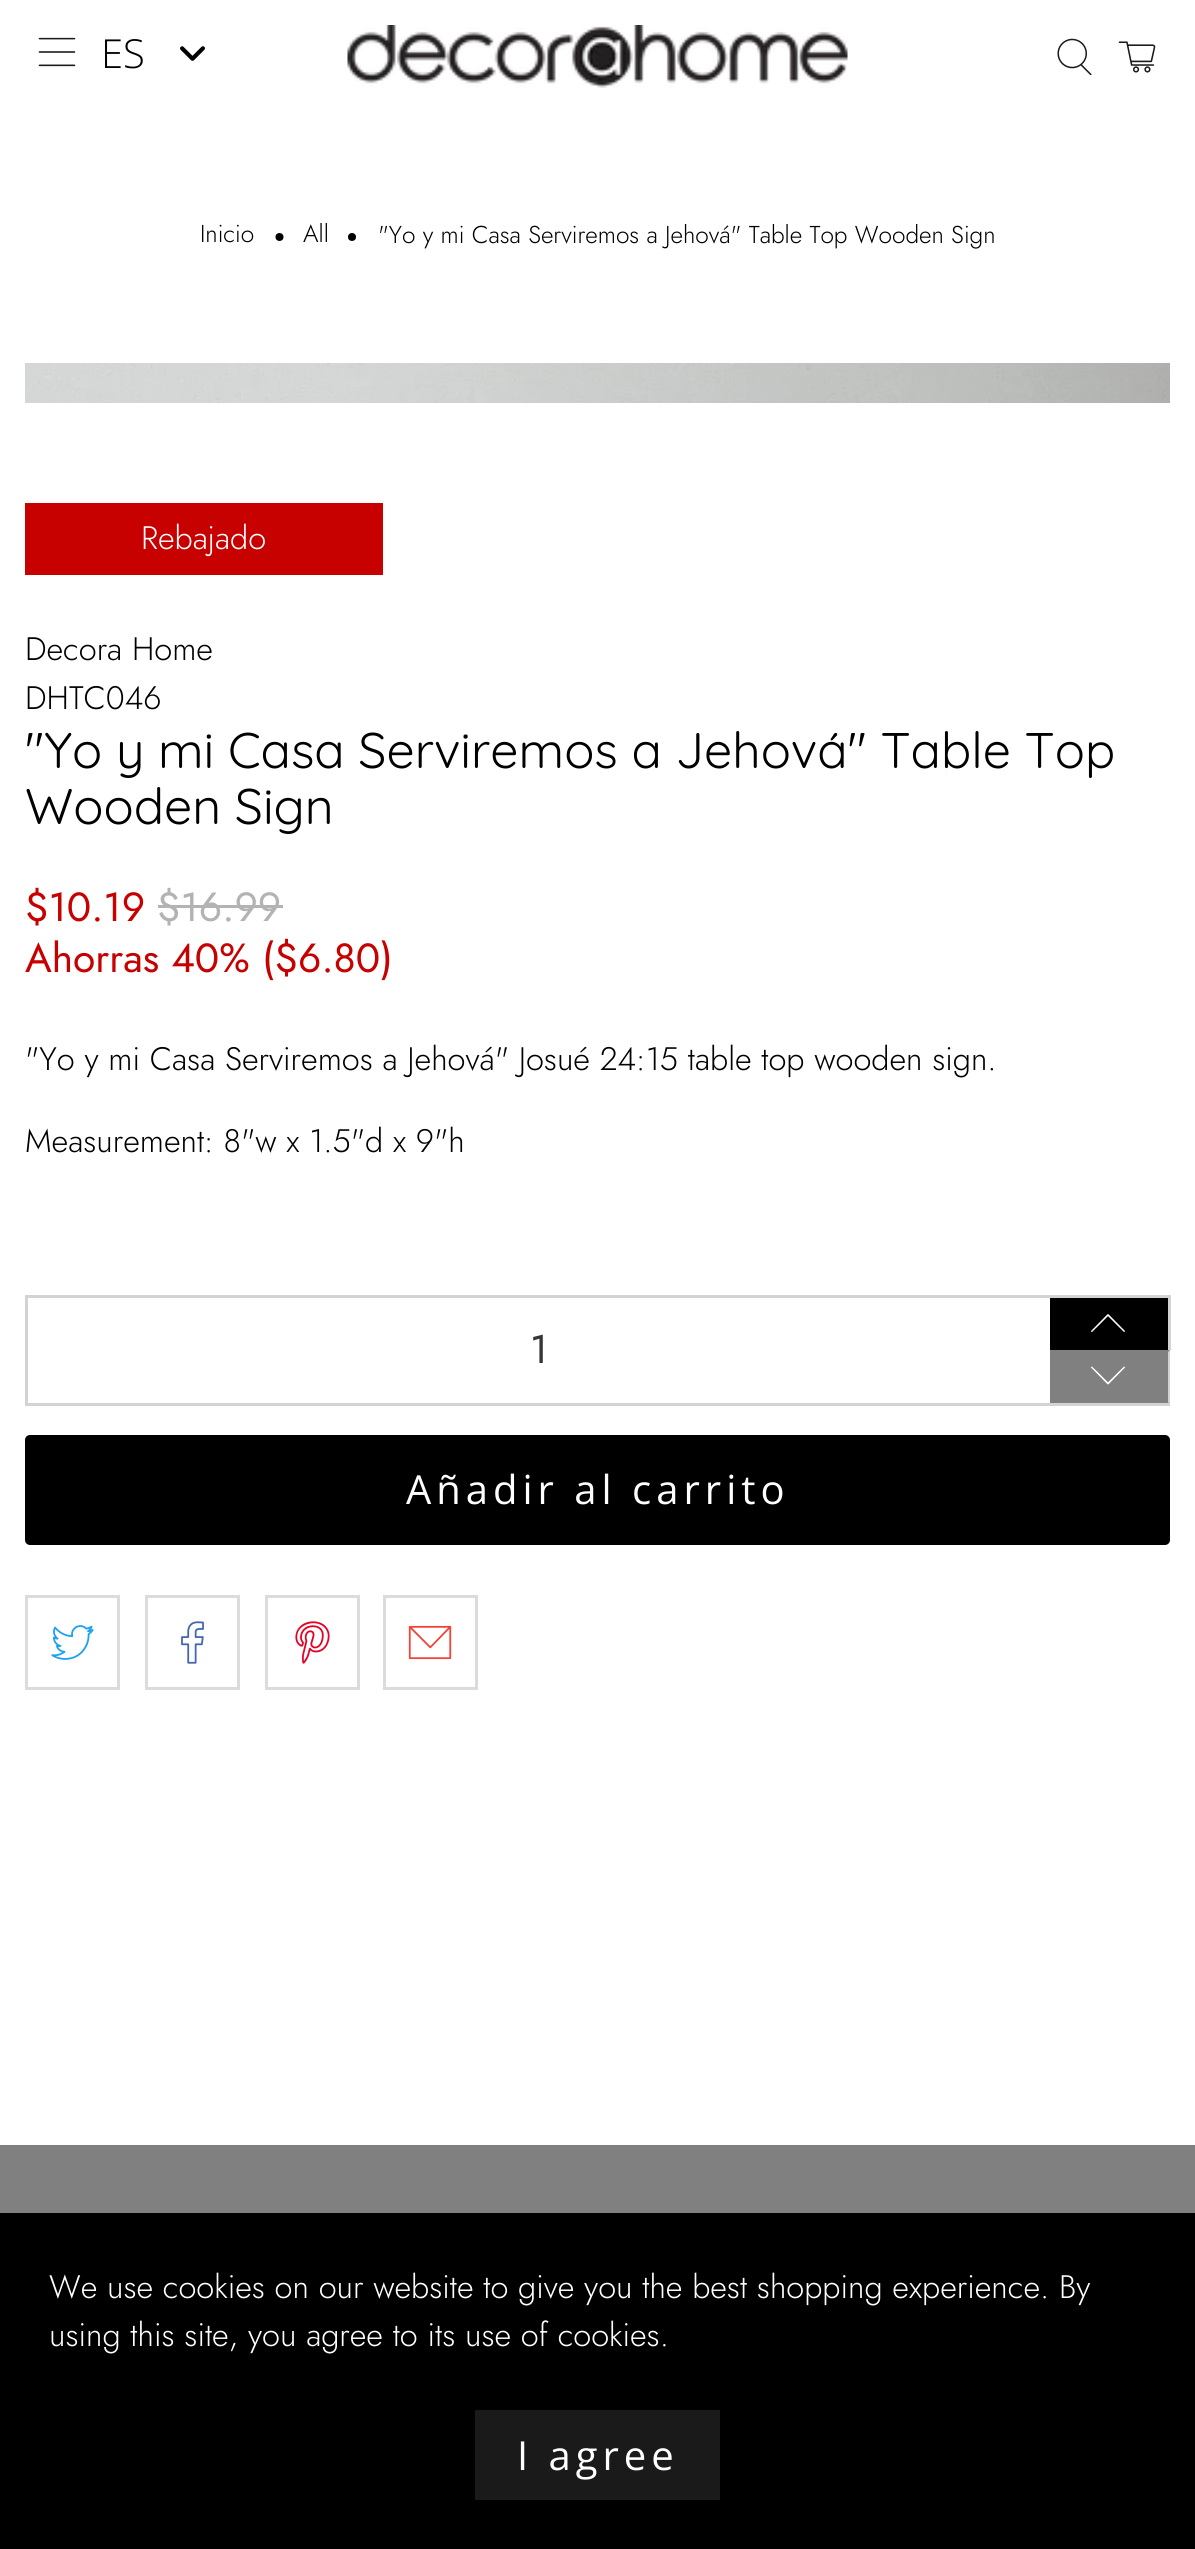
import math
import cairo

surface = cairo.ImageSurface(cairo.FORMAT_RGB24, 1195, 2549)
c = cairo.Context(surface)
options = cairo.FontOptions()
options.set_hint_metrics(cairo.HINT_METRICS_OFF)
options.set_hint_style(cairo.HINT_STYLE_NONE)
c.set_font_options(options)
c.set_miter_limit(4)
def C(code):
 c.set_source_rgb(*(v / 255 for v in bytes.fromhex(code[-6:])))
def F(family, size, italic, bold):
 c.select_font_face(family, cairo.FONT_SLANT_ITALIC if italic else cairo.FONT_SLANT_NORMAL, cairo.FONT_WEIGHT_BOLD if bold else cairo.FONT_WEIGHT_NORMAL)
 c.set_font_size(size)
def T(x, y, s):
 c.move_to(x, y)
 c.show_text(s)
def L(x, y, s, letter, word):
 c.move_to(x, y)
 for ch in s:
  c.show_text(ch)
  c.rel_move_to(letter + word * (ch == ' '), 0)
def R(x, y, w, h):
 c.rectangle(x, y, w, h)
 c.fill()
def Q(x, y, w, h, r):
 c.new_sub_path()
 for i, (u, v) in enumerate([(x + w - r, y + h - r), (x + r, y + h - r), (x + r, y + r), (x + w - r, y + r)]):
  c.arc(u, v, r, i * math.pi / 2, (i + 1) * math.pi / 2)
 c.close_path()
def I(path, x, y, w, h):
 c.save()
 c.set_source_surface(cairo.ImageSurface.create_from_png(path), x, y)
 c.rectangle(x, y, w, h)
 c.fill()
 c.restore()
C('ffffff')
c.paint()
I('1.png',38,37,38,30)
I('2.png',180,46,25,15)
F('Open Sans Light',40,0,0)
C('000000')
T(101,68,'ES')
I('3.png',347,25,501,63)
I('4.png',1057,38,35,37)
I('5.png',1118,41,38,32)
F('Jost Light',24.4,0,0)
T(200,242,'Inicio')
c.new_path()
c.arc(279.5,237,4,0,2 * math.pi)
c.fill()
T(303,242,'All')
c.new_path()
c.arc(352,237,4,0,2 * math.pi)
c.fill()
T(378,243,'"Yo y mi Casa Serviremos a Jehová" Table Top Wooden Sign')
I('6.png',25,363,1145,40)
C('c70000')
R(25,503,358,72)
F('Jost Light',32.5,0,0)
C('ffffff')
T(141,549,'Rebajado')
C('000000')
T(25,660,'Decora Home')
T(25,709,'DHTC046')
F('Quicksand',50,0,0)
T(25,768,'"Yo y mi Casa Serviremos a Jehová" Table Top')
T(25,824,'Wooden Sign')
F('Jost',40.6,0,0)
C('c70000')
T(25,921,'$10.19')
C('b3b3b3')
T(157,921,'$16.99')
R(158,905,125,3)
C('c70000')
T(25,972,'Ahorras 40% ($6.80)')
F('Jost Light',32.5,0,0)
C('000000')
T(25,1070,'"Yo y mi Casa Serviremos a Jehová" Josué 24:15 table top wooden sign.')
T(25,1152,'Measurement: 8"w x 1.5"d x 9"h')
C('d3d3d3')
R(25,1295,1145,3)
R(25,1403,1025,3)
R(25,1295,3,110)
F('Jost',40,0,0)
C('363636')
T(530,1363,'1')
C('000000')
R(1050,1298,118,52)
C('d3d3d3')
R(1168,1295,3,55)
I('7.png',1091,1314,34,18)
C('808080')
R(1050,1350,120,53)
C('d3d3d3')
c.new_path()
c.move_to(1170,1350)
c.line_to(1170,1405)
c.line_to(1168,1402)
c.line_to(1168,1352)
c.close_path()
c.fill()
R(1050,1403,120,3)
I('8.png',1091,1366,34,19)
C('000000')
Q(25,1435,1145,110,5)
c.fill()
F('Open Sans',40,0,0)
C('ffffff')
L(406,1504,'Añadir al carrito',5,0)
c.rectangle(26.5,1596.5,92,92)
C('dbdbdb')
c.set_line_width(3)
c.stroke()
I('9.png',51,1625,43,35)
c.rectangle(146.5,1596.5,92,92)
c.stroke()
I('10.png',181,1621,23,43)
c.rectangle(266.5,1596.5,92,92)
c.stroke()
I('11.png',295,1621,35,43)
c.rectangle(384.5,1596.5,92,92)
c.stroke()
I('12.png',408,1625,44,35)
C('808080')
R(0,2145,1195,68)
C('000000')
R(0,2213,1195,336)
F('Jost Light',32.5,0,0)
C('ffffff')
T(49,2298,'We use cookies on our website to give you the best shopping experience. By')
T(49,2346,'using this site, you agree to its use of cookies.')
C('1a1a1a')
R(475,2410,245,90)
F('Open Sans',40,0,0)
C('ffffff')
L(517,2470,'I agree',5,0)
surface.write_to_png('o.png')
